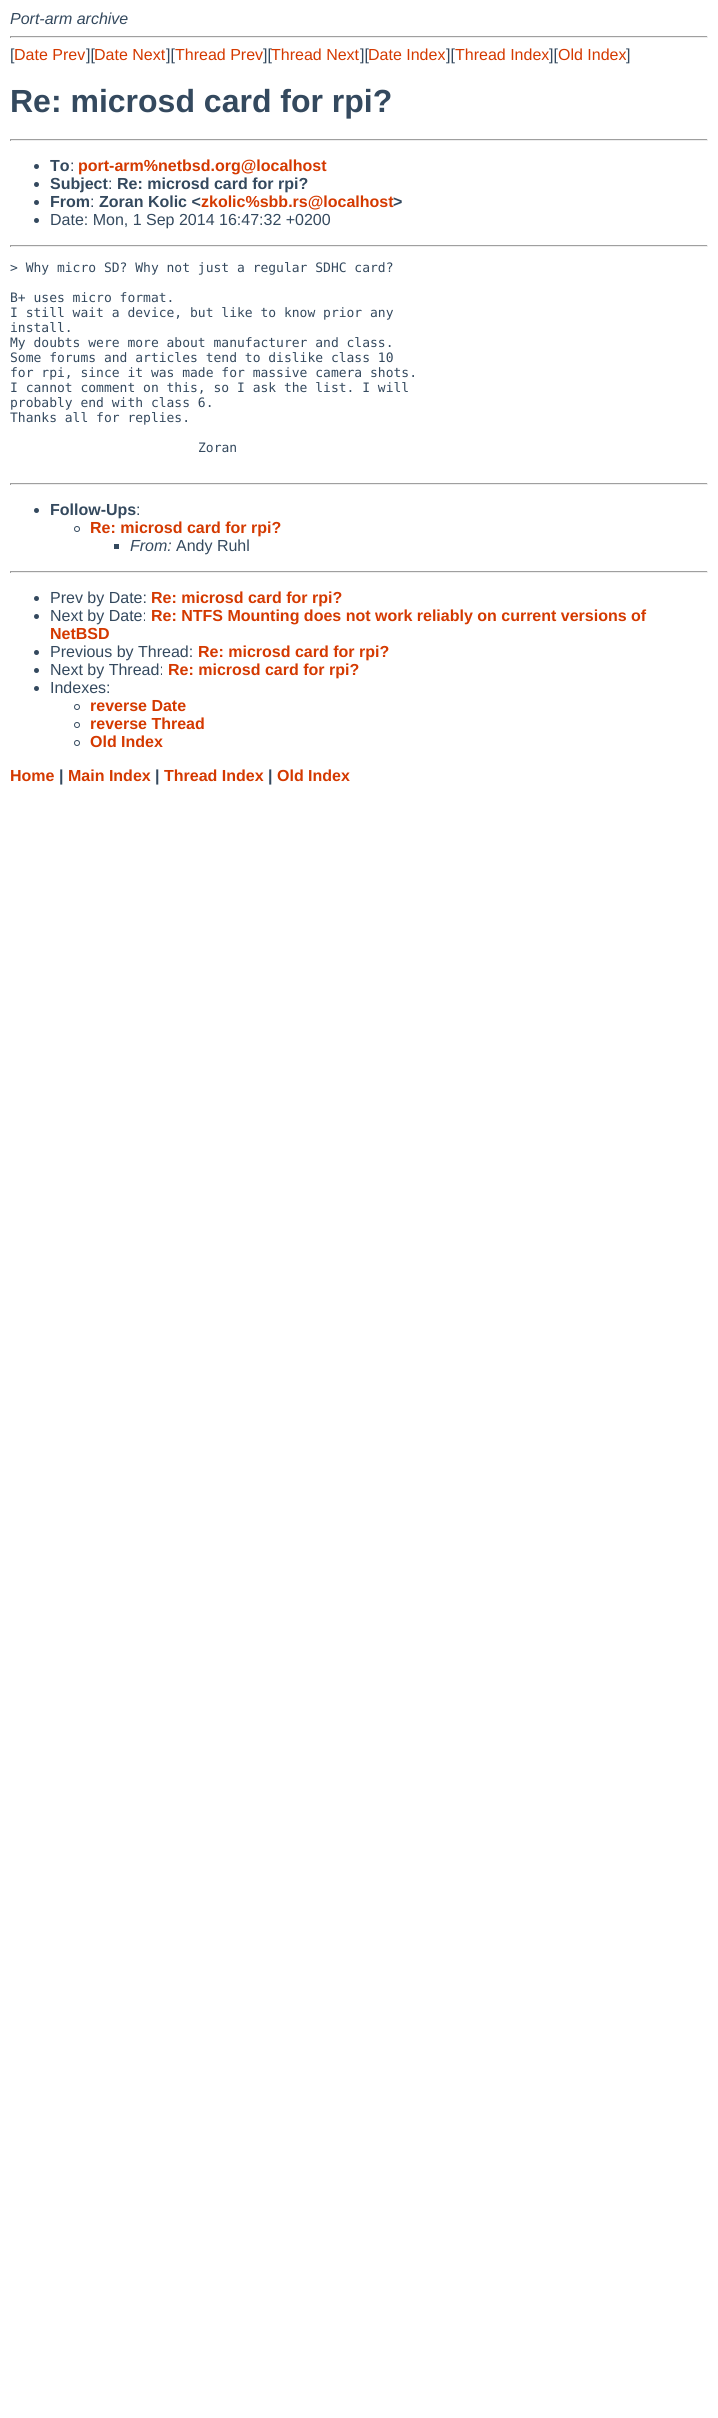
import math
import cairo

surface = cairo.ImageSurface(cairo.FORMAT_RGB24, 718, 2418)
c = cairo.Context(surface)
options = cairo.FontOptions()
options.set_hint_metrics(cairo.HINT_METRICS_OFF)
options.set_hint_style(cairo.HINT_STYLE_NONE)
c.set_font_options(options)
c.set_miter_limit(4)
def C(code):
 c.set_source_rgb(*(v / 255 for v in bytes.fromhex(code[-6:])))
def F(family, size, italic, bold):
 c.select_font_face(family, cairo.FONT_SLANT_ITALIC if italic else cairo.FONT_SLANT_NORMAL, cairo.FONT_WEIGHT_BOLD if bold else cairo.FONT_WEIGHT_NORMAL)
 c.set_font_size(size)
def T(x, y, s):
 c.move_to(x, y)
 c.show_text(s)
def R(x, y, w, h):
 c.rectangle(x, y, w, h)
 c.fill()
C('ffffff')
c.paint()
F('Liberation Sans',16,1,0)
C('34495e')
T(10,24,'Port-arm archive')
C('9f9f9f')
R(10,36,698,1)
C('eeeeee')
R(707,36,1,2)
R(10,37,698,1)
C('9f9f9f')
R(10,36,1,2)
F('Liberation Sans',16,0,0)
C('34495e')
T(10,60,'[')
C('d43900')
T(14,60,'Date Prev')
C('34495e')
T(86,60,'][')
C('d43900')
T(94,60,'Date Next')
C('34495e')
T(166,60,'][')
C('d43900')
T(175,60,'Thread Prev')
C('34495e')
T(263,60,'][')
C('d43900')
T(271,60,'Thread Next')
C('34495e')
T(360,60,'][')
C('d43900')
T(368,60,'Date Index')
C('34495e')
T(446,60,'][')
C('d43900')
T(455,60,'Thread Index')
C('34495e')
T(549,60,'][')
C('d43900')
T(558,60,'Old Index')
C('34495e')
T(626,60,']')
F('Liberation Sans',32,0,1)
T(10,112,'Re: microsd card for rpi?')
C('9f9f9f')
R(10,139,698,1)
C('eeeeee')
R(707,139,1,2)
R(10,140,698,1)
C('9f9f9f')
R(10,139,1,2)
C('34495e')
c.new_path()
c.arc(36.5,166.5,2.5,0,2 * math.pi)
c.fill()
F('Liberation Sans',16,0,1)
T(50,171,'To')
F('Liberation Sans',16,0,0)
T(70,171,':')
F('Liberation Sans',16,0,1)
C('d43900')
T(78,171,'port-arm%netbsd.org@localhost')
C('34495e')
c.new_path()
c.arc(36.5,184.5,2.5,0,2 * math.pi)
c.fill()
T(50,189,'Subject')
F('Liberation Sans',16,0,0)
T(108,189,':')
F('Liberation Sans',16,0,1)
T(117,189,'Re: microsd card for rpi?')
c.new_path()
c.arc(36.5,202.5,2.5,0,2 * math.pi)
c.fill()
T(50,207,'From')
F('Liberation Sans',16,0,0)
T(90,207,':')
F('Liberation Sans',16,0,1)
T(99,207,'Zoran Kolic <')
C('d43900')
T(201,207,'zkolic%sbb.rs@localhost')
C('34495e')
T(393,207,'>')
c.new_path()
c.arc(36.5,220.5,2.5,0,2 * math.pi)
c.fill()
F('Liberation Sans',16,0,0)
T(50,225,'Date: Mon, 1 Sep 2014 16:47:32 +0200')
C('9f9f9f')
R(10,245,698,1)
C('eeeeee')
R(707,245,1,2)
R(10,246,698,1)
C('9f9f9f')
R(10,245,1,2)
F('DejaVu Sans Mono',13,0,0)
C('34495e')
T(10,272,'> Why micro SD? Why not just a regular SDHC card?')
T(10,302,'B+ uses micro format.')
T(10,317,'I still wait a device, but like to know prior any')
T(10,332,'install.')
T(10,347,'My doubts were more about manufacturer and class.')
T(10,362,'Some forums and articles tend to dislike class 10')
T(10,377,'for rpi, since it was made for massive camera shots.')
T(10,392,'I cannot comment on this, so I ask the list. I will')
T(10,407,'probably end with class 6.')
T(10,422,'Thanks all for replies.')
T(198,452,'Zoran')
C('9f9f9f')
R(10,483,698,1)
C('eeeeee')
R(707,483,1,2)
R(10,484,698,1)
C('9f9f9f')
R(10,483,1,2)
C('34495e')
c.new_path()
c.arc(36.5,510.5,2.5,0,2 * math.pi)
c.fill()
F('Liberation Sans',16,0,1)
T(50,515,'Follow-Ups')
F('Liberation Sans',16,0,0)
T(136,515,':')
c.new_path()
c.arc(77,529,2.5,0,2 * math.pi)
c.set_line_width(1)
c.stroke()
F('Liberation Sans',16,0,1)
C('d43900')
T(90,533,'Re: microsd card for rpi?')
C('34495e')
R(114,544,5,5)
F('Liberation Sans',16,1,0)
T(130,551,'From:')
F('Liberation Sans',16,0,0)
T(176,551,'Andy Ruhl')
C('9f9f9f')
R(10,571,698,1)
C('eeeeee')
R(707,571,1,2)
R(10,572,698,1)
C('9f9f9f')
R(10,571,1,2)
C('34495e')
c.new_path()
c.arc(36.5,598.5,2.5,0,2 * math.pi)
c.fill()
T(50,603,'Prev by Date:')
F('Liberation Sans',16,0,1)
C('d43900')
T(151,603,'Re: microsd card for rpi?')
C('34495e')
c.new_path()
c.arc(36.5,616.5,2.5,0,2 * math.pi)
c.fill()
F('Liberation Sans',16,0,0)
T(50,621,'Next by Date:')
F('Liberation Sans',16,0,1)
C('d43900')
T(151,621,'Re: NTFS Mounting does not work reliably on current versions of')
T(50,639,'NetBSD')
C('34495e')
c.new_path()
c.arc(36.5,652.5,2.5,0,2 * math.pi)
c.fill()
F('Liberation Sans',16,0,0)
T(50,657,'Previous by Thread:')
F('Liberation Sans',16,0,1)
C('d43900')
T(198,657,'Re: microsd card for rpi?')
C('34495e')
c.new_path()
c.arc(36.5,670.5,2.5,0,2 * math.pi)
c.fill()
F('Liberation Sans',16,0,0)
T(50,675,'Next by Thread:')
F('Liberation Sans',16,0,1)
C('d43900')
T(168,675,'Re: microsd card for rpi?')
C('34495e')
c.new_path()
c.arc(36.5,688.5,2.5,0,2 * math.pi)
c.fill()
F('Liberation Sans',16,0,0)
T(50,693,'Indexes:')
c.new_path()
c.arc(77,707,2.5,0,2 * math.pi)
c.stroke()
F('Liberation Sans',16,0,1)
C('d43900')
T(90,711,'reverse Date')
c.new_path()
c.arc(77,725,2.5,0,2 * math.pi)
C('34495e')
c.stroke()
C('d43900')
T(90,729,'reverse Thread')
c.new_path()
c.arc(77,743,2.5,0,2 * math.pi)
C('34495e')
c.stroke()
C('d43900')
T(90,747,'Old Index')
T(10,781,'Home')
C('34495e')
T(59,781,'|')
C('d43900')
T(68,781,'Main Index')
C('34495e')
T(155,781,'|')
C('d43900')
T(164,781,'Thread Index')
C('34495e')
T(268,781,'|')
C('d43900')
T(277,781,'Old Index')
surface.write_to_png('o.png')
